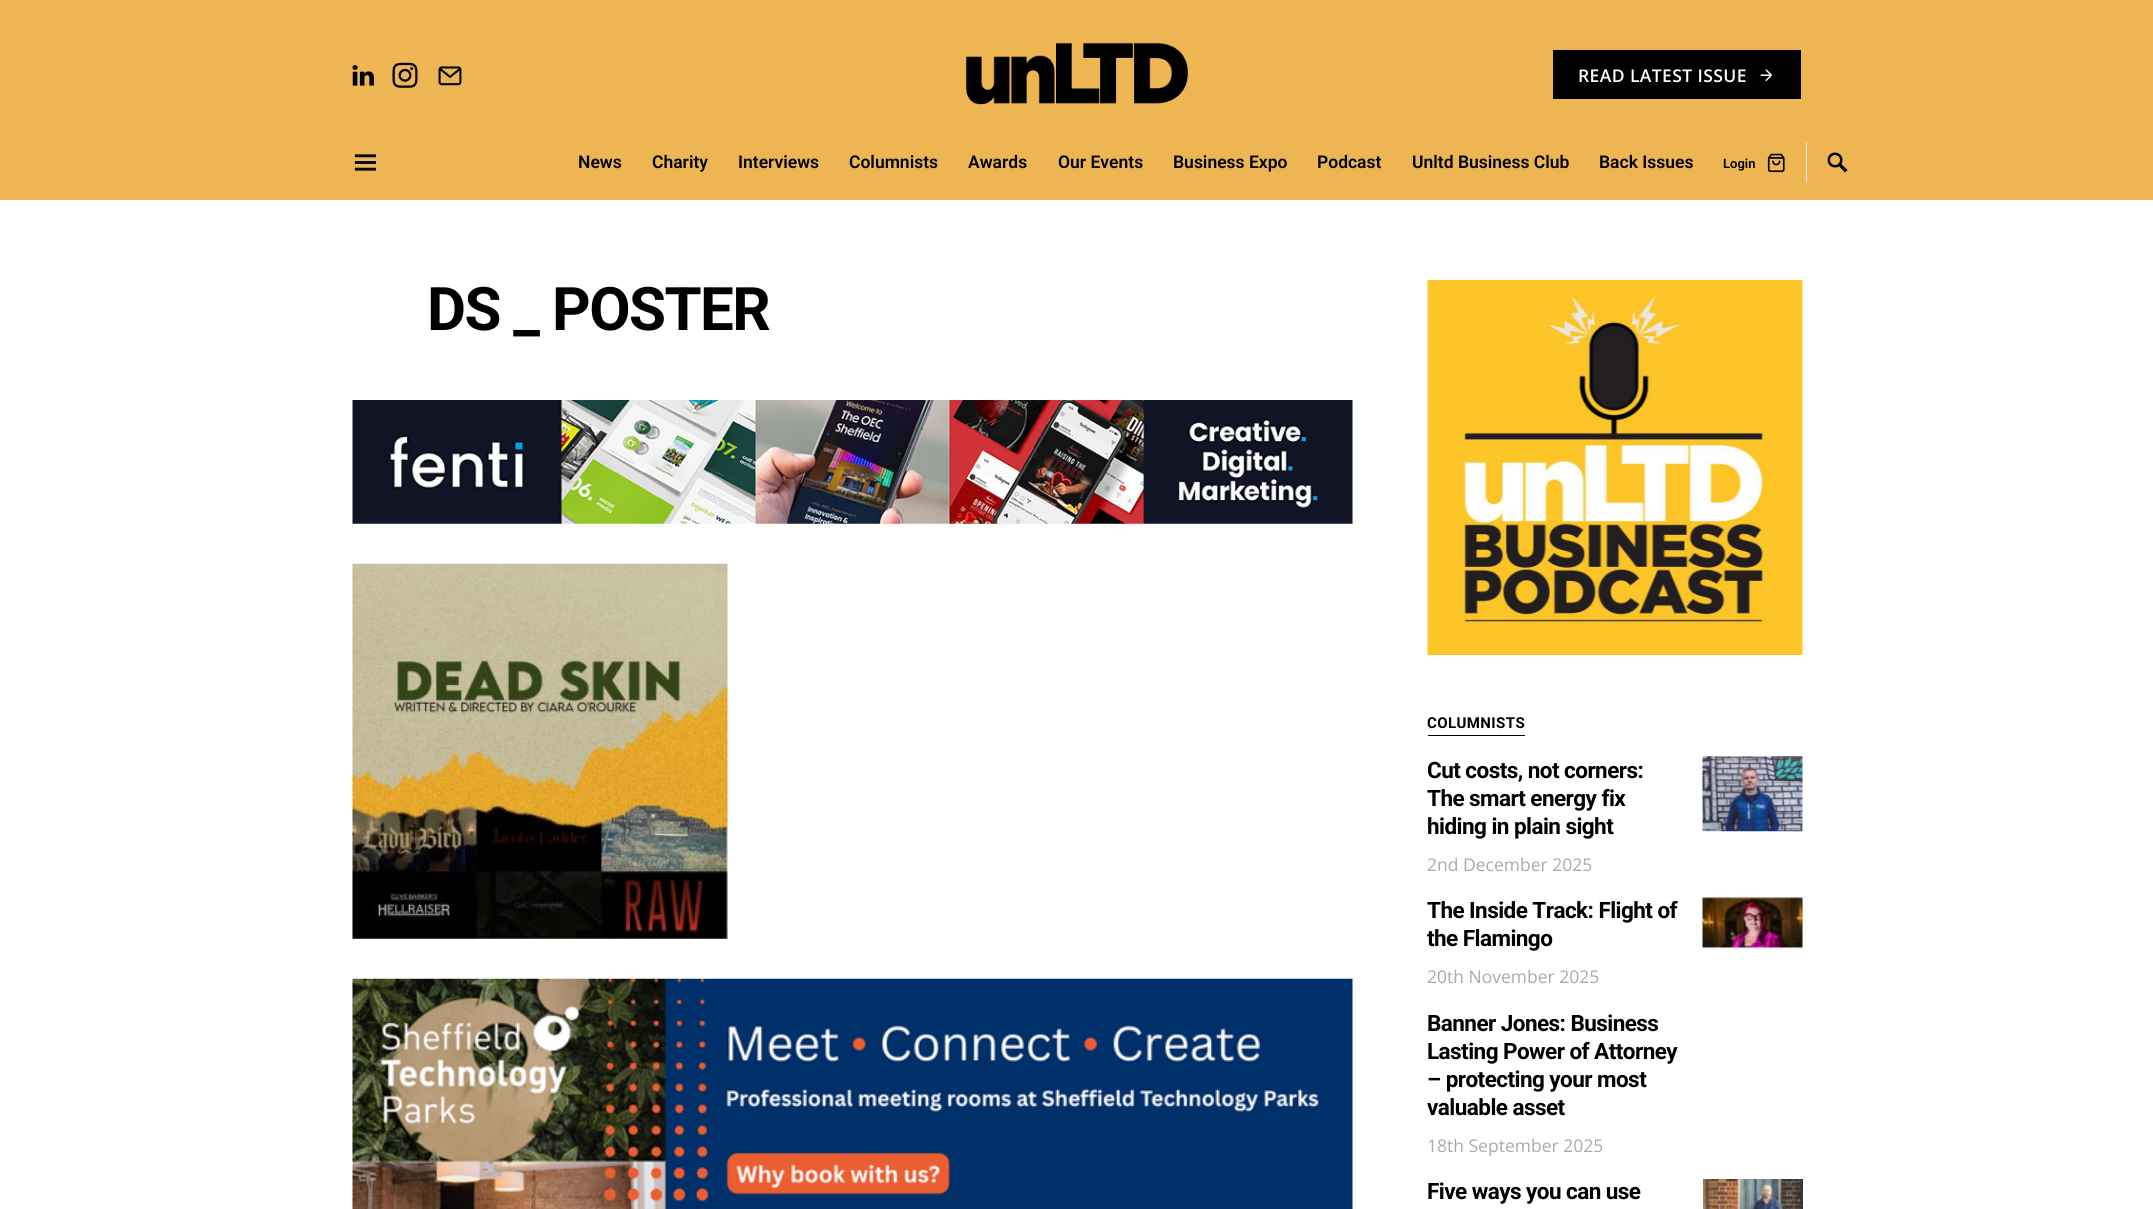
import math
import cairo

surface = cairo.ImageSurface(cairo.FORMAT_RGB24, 2153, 1209)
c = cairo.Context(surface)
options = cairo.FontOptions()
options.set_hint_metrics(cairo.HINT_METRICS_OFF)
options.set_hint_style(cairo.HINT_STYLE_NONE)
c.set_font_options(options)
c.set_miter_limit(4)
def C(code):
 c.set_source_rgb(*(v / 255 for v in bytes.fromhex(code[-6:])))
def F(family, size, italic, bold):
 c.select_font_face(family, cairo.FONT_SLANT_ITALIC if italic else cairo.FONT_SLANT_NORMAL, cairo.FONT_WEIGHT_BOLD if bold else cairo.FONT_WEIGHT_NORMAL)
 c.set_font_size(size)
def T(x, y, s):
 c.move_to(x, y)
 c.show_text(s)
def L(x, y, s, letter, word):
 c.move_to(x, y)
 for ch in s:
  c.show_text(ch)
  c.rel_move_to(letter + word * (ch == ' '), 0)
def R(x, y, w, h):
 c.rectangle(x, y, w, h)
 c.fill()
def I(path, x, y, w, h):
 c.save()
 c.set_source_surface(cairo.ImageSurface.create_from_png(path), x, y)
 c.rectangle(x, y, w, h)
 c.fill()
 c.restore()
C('ffffff')
c.paint()
C('eeb652')
R(0,0,2153,200)
I('1.png',352,65,22,21)
I('2.png',392,62,26,26)
I('3.png',438,66,24,20)
I('4.png',965,42,223,63)
C('000000')
R(1553,50,248,49)
F('Open Sans SemiBold',17.5,0,0)
C('ffffff')
L(1578,82,'READ LATEST ISSUE',.4,0)
I('5.png',1760,69,13,12)
I('6.png',354,154,22,17)
F('Roboto SemiBold',17.5,0,0)
C('000000')
T(578,168,'News')
T(652,168,'Charity')
T(738,168,'Interviews')
T(849,168,'Columnists')
T(968,168,'Awards')
T(1058,168,'Our Events')
T(1173,168,'Business Expo')
T(1317,168,'Podcast')
T(1412,168,'Unltd Business Club')
T(1599,168,'Back Issues')
F('Roboto SemiBold',13,0,0)
T(1723,168,'Login')
I('7.png',1767,153,18,20)
C('e9ecef')
R(1806,143,1,40)
I('8.png',1827,152,21,21)
F('Roboto',60,0,1)
C('000000')
L(427,330,'DS _ POSTER',-1.5,0)
I('9.png',352,400,1001,124)
I('10.png',352,563,376,376)
I('11.png',352,978,1001,231)
I('12.png',1427,280,376,375)
F('Roboto',15,0,1)
L(1427,728,'COLUMNISTS',.4,0)
R(1428,735,97,1)
F('Roboto',22.5,0,1)
L(1427,778,'Cut costs, not corners:',-.55,0)
L(1427,806,'The smart energy fix',-.55,0)
L(1427,834,'hiding in plain sight',-.55,0)
F('Open Sans',17.5,0,0)
C('a8aab2')
T(1427,871,'2nd December 2025')
I('13.png',1702,756,101,76)
F('Roboto',22.5,0,1)
C('000000')
L(1427,918,'The Inside Track: Flight of',-.55,0)
L(1427,946,'the Flamingo',-.55,0)
F('Open Sans',17.5,0,0)
C('a8aab2')
T(1427,983,'20th November 2025')
I('14.png',1702,897,101,52)
F('Roboto',22.5,0,1)
C('000000')
L(1427,1031,'Banner Jones: Business',-.55,0)
L(1427,1059,'Lasting Power of Attorney',-.55,0)
L(1427,1087,'– protecting your most',-.55,0)
L(1427,1115,'valuable asset',-.55,0)
F('Open Sans',17.5,0,0)
C('a8aab2')
T(1427,1152,'18th September 2025')
F('Roboto',22.5,0,1)
C('000000')
L(1427,1199,'Five ways you can use',-.55,0)
I('15.png',1703,1179,100,30)
surface.write_to_png('o.png')
